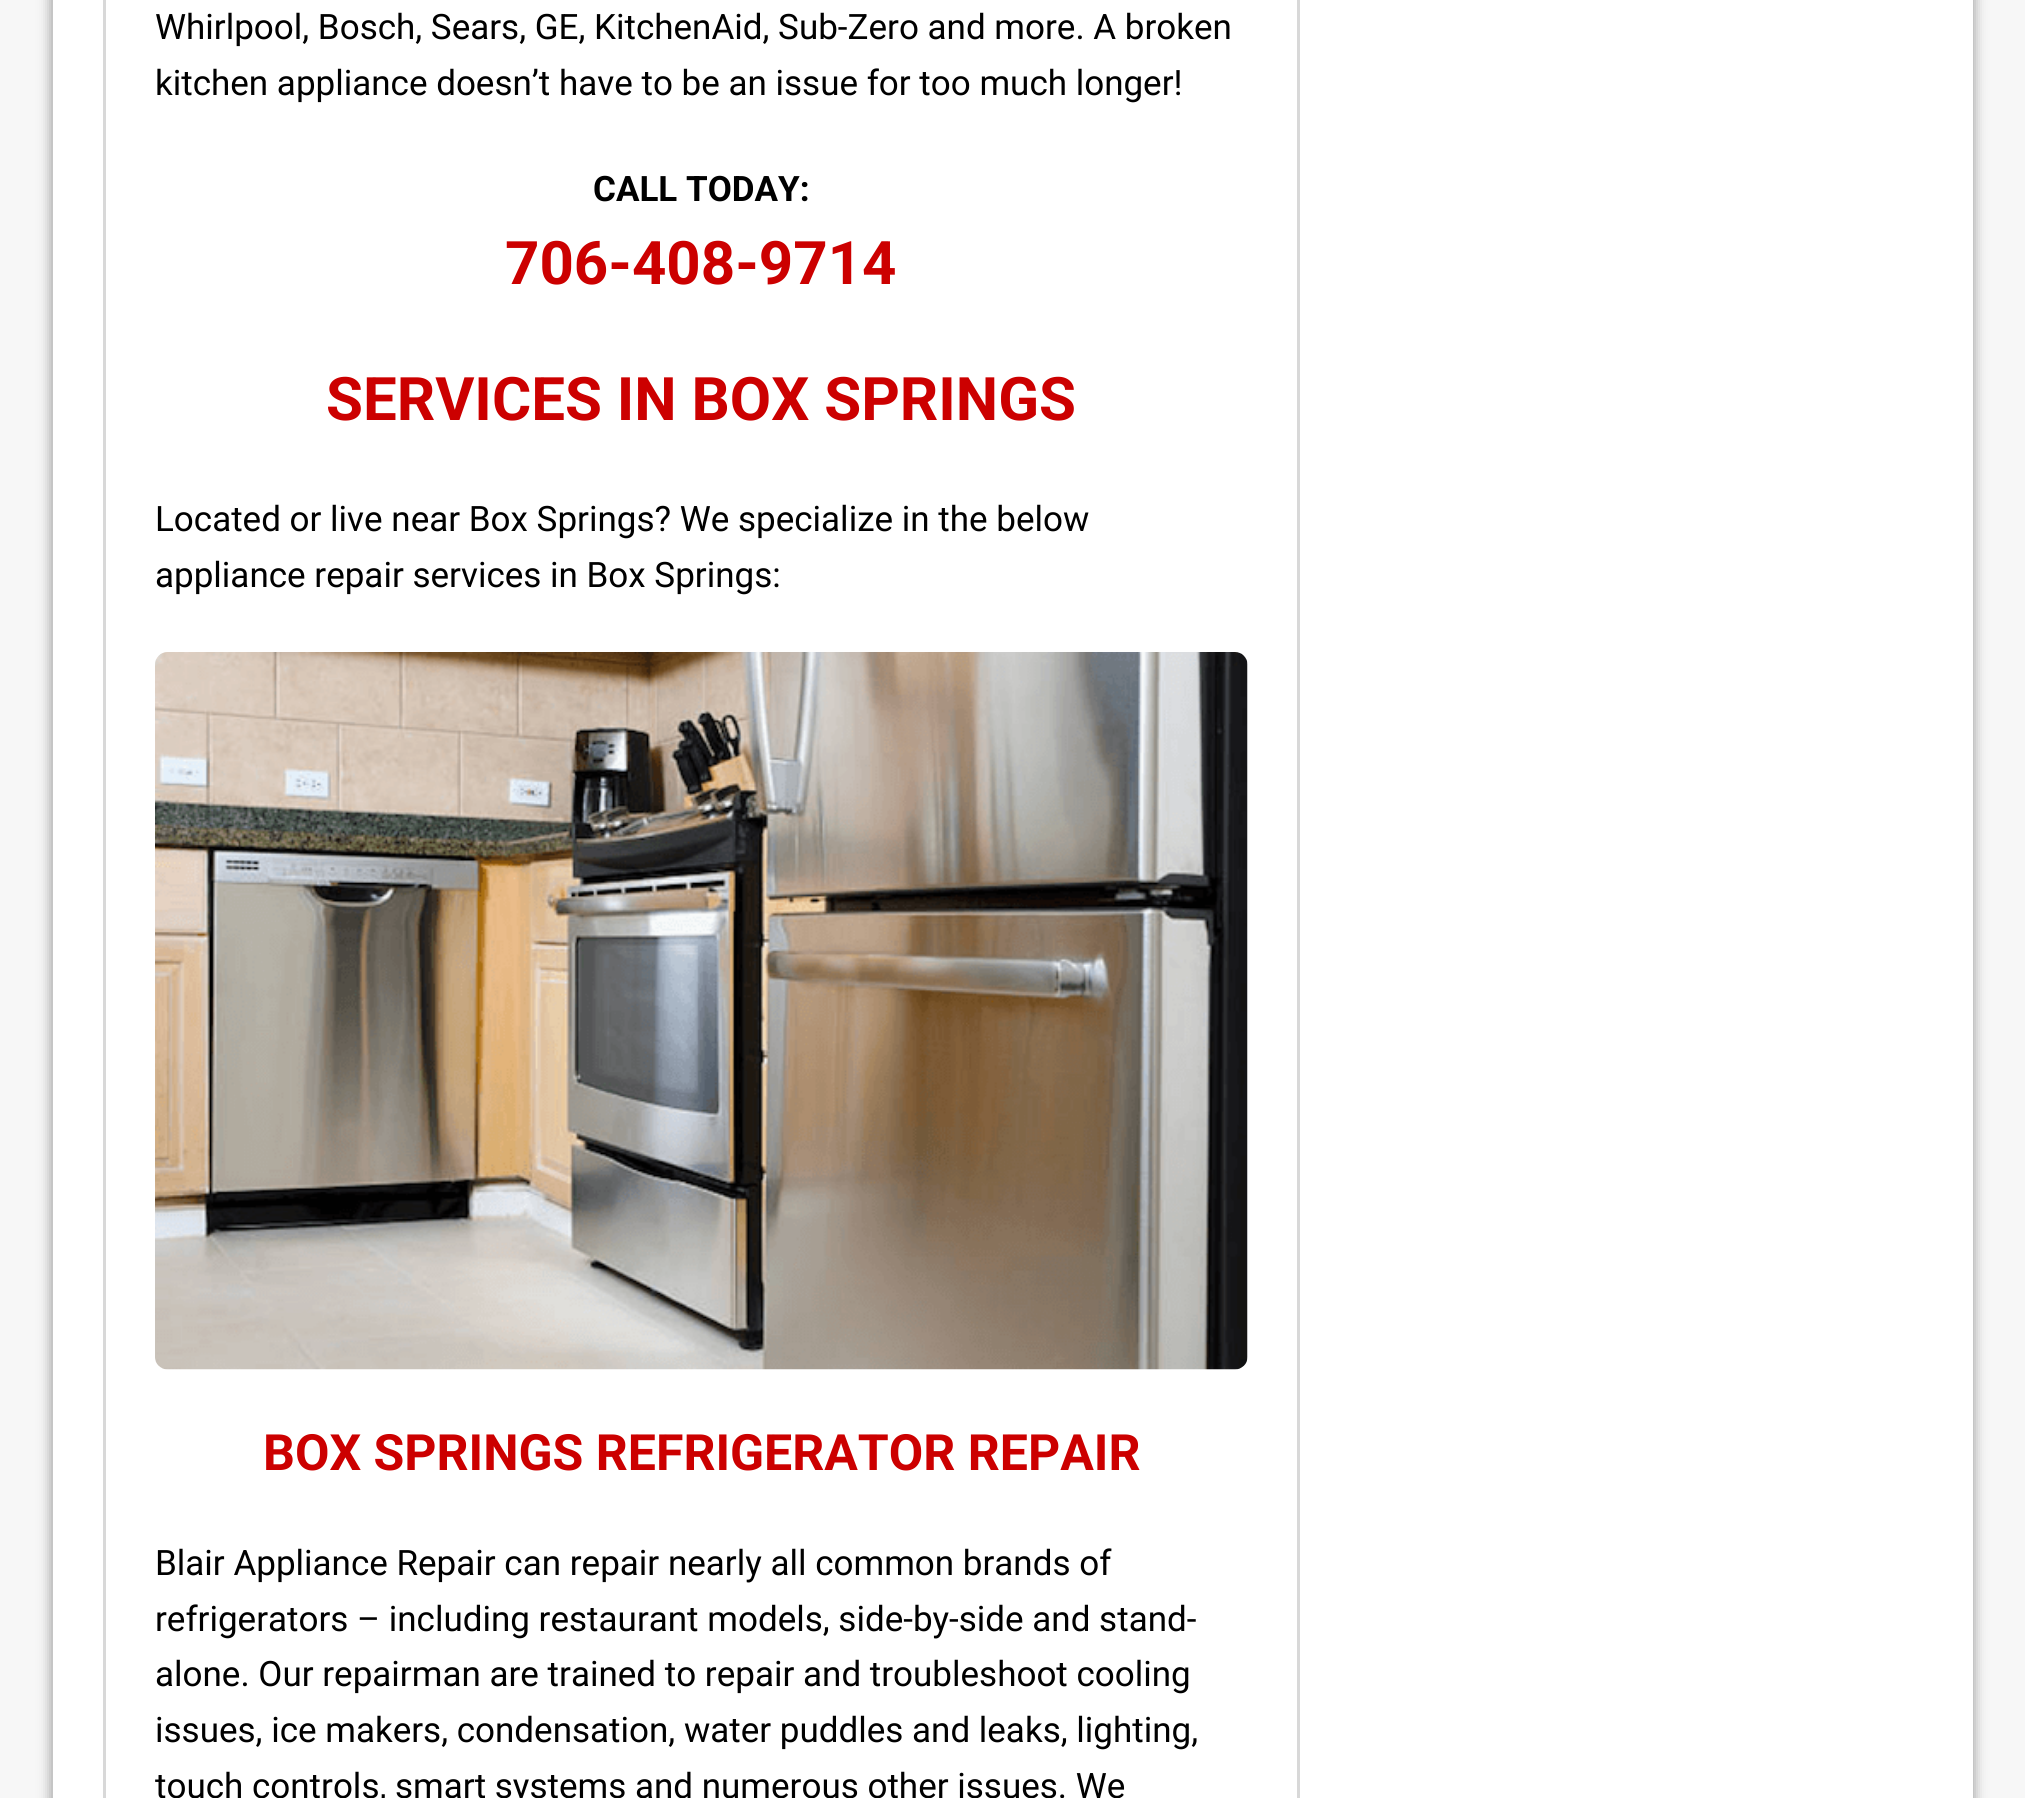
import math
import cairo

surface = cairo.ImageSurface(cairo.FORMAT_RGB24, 2025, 1798)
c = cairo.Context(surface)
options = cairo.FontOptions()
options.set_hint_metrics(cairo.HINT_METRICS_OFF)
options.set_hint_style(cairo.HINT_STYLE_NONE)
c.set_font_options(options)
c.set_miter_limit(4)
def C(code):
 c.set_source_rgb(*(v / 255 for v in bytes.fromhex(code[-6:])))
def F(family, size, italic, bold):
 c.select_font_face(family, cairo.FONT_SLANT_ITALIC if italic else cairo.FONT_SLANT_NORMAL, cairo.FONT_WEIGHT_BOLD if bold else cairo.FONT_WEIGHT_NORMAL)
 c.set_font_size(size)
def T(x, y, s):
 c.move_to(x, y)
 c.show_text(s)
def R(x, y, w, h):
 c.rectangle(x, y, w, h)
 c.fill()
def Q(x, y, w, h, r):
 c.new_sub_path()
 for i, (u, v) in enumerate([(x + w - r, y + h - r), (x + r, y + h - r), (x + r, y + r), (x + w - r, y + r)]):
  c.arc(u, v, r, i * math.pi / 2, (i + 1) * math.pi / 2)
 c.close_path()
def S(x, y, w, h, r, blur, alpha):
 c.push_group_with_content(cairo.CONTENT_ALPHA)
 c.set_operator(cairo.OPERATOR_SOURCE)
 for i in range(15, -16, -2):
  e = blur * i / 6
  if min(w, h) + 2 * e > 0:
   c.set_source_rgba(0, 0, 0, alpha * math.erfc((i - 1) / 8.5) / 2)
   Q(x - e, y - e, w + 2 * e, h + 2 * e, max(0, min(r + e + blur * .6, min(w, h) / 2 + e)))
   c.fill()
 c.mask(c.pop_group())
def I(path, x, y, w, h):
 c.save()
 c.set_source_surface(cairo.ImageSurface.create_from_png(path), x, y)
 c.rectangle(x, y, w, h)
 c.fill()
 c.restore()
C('f7f7f7')
c.paint()
C('a8a8a8')
S(50,-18,1925,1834,0,6,1)
C('ffffff')
R(53,0,1920,1798)
c.rectangle(104.5,-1.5,1194,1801)
C('d8d8d8')
c.set_line_width(3)
c.stroke()
F('Roboto',35,0,0)
C('000000')
T(155,39,'Whirlpool, Bosch, Sears, GE, KitchenAid, Sub-Zero and more. A broken')
T(155,95,'kitchen appliance doesn’t have to be an issue for too much longer!')
F('Roboto',35,0,1)
T(593,201,'CALL TODAY:')
F('Roboto',60,0,1)
C('cc0000')
T(505,284,'706-408-9714')
T(326,420,'SERVICES IN BOX SPRINGS')
F('Roboto',35,0,0)
C('000000')
T(155,531,'Located or live near Box Springs? We specialize in the below')
T(155,587,'appliance repair services in Box Springs:')
I('1.png',155,652,1093,718)
F('Roboto',50,0,1)
C('cc0000')
T(263,1470,'BOX SPRINGS REFRIGERATOR REPAIR')
F('Roboto',35,0,0)
C('000000')
T(155,1575,'Blair Appliance Repair can repair nearly all common brands of')
T(155,1631,'refrigerators – including restaurant models, side-by-side and stand-')
T(155,1686,'alone. Our repairman are trained to repair and troubleshoot cooling')
T(155,1742,'issues, ice makers, condensation, water puddles and leaks, lighting,')
T(155,1798,'touch controls, smart systems and numerous other issues. We')
surface.write_to_png('o.png')
